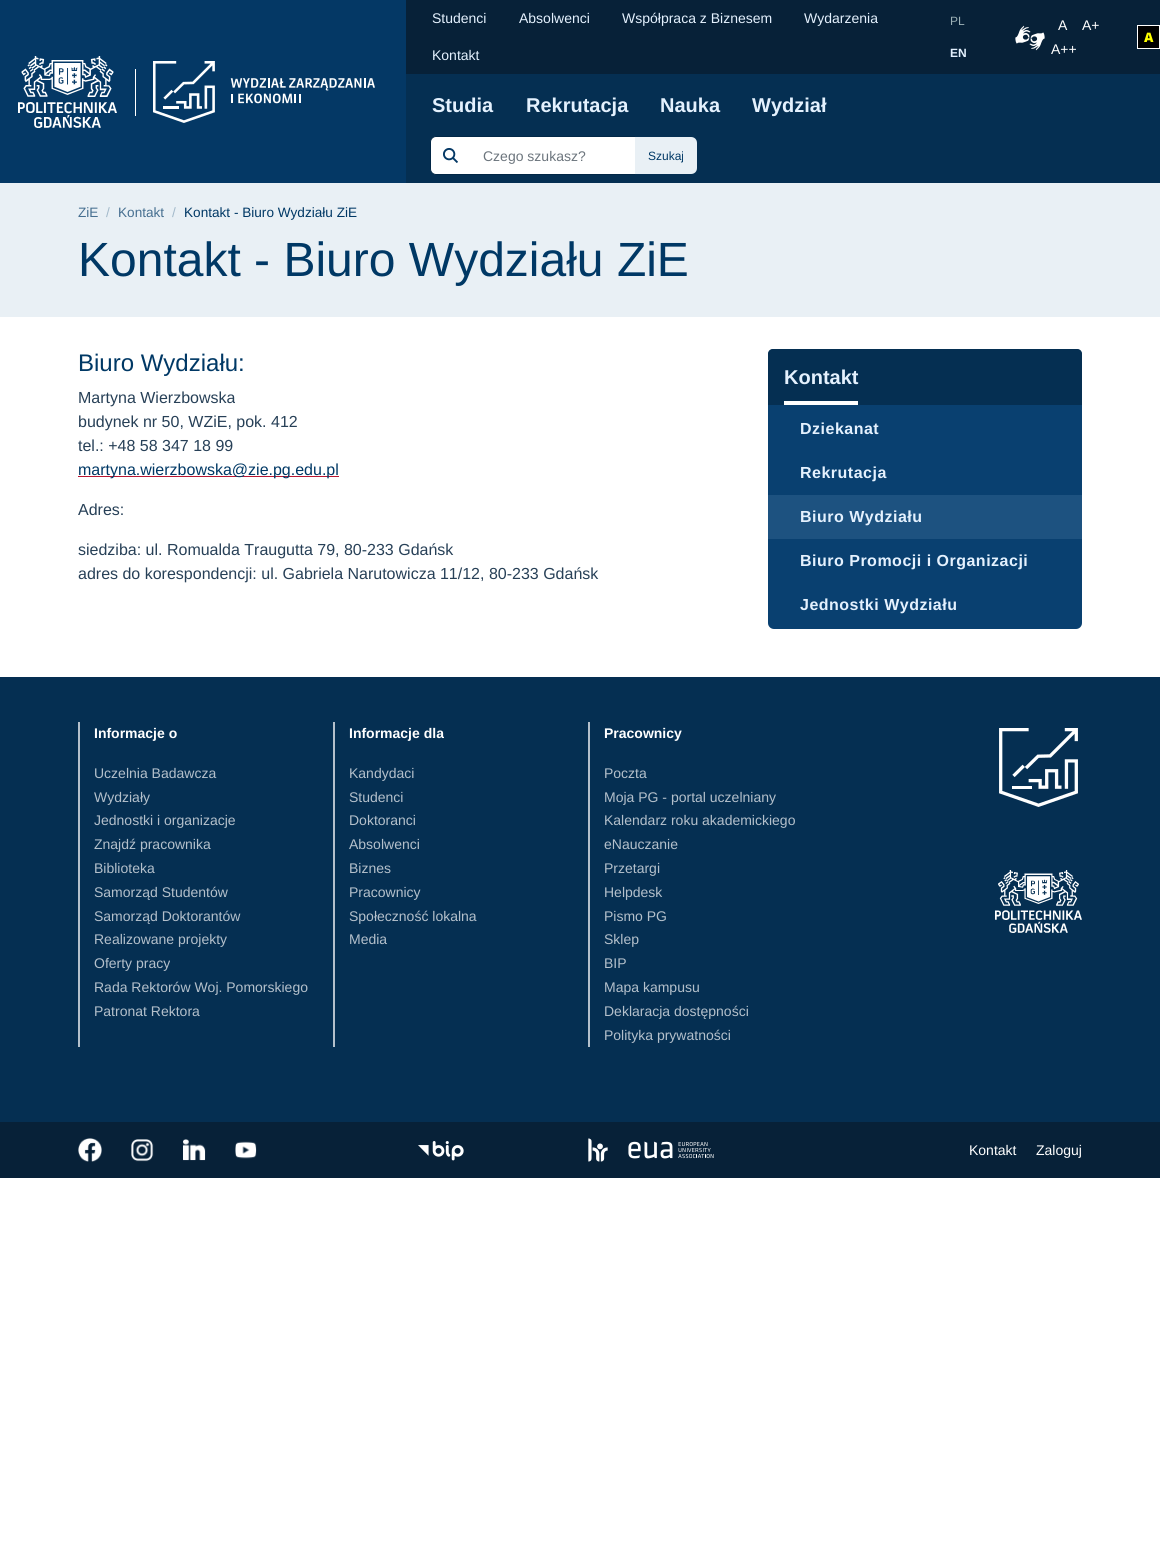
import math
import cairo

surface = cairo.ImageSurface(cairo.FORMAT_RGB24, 1160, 1560)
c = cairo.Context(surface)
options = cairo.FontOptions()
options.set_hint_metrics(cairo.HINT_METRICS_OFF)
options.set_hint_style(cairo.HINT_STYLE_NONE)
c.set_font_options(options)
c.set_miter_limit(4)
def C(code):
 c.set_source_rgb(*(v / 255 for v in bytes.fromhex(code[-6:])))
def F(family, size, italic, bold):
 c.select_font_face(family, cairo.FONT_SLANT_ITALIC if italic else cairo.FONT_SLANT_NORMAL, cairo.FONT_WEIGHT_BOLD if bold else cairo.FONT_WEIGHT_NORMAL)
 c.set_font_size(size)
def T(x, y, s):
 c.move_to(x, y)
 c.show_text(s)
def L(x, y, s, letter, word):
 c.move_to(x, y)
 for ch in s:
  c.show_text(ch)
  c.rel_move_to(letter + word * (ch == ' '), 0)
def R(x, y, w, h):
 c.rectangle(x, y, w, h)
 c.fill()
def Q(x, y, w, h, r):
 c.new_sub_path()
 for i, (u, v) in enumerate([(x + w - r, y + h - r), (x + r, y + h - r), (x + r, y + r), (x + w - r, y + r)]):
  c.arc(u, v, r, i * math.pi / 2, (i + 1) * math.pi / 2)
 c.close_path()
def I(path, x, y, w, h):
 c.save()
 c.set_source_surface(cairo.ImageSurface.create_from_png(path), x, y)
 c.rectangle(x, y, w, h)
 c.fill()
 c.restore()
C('ffffff')
c.paint()
C('043865')
R(0,0,406,183)
I('1.png',18,56,99,72)
C('ffffff')
R(135,69,1,47)
I('2.png',153,61,222,62)
C('072138')
R(406,0,754,74)
F('Liberation Sans',14,0,0)
C('e4f1fe')
T(432,23,'Studenci')
T(519,23,'Absolwenci')
T(622,23,'Współpraca z Biznesem')
T(804,23,'Wydarzenia')
T(432,60,'Kontakt')
F('Liberation Sans',12,0,0)
C('9bb0b5')
T(950,25,'PL')
F('Liberation Sans',12,0,1)
C('e4f1fe')
T(950,57,'EN')
I('3.png',1015,25,30,26)
F('Liberation Sans',14,0,0)
C('ffffff')
T(1058,30,'A')
T(1082,30,'A+')
T(1051,54,'A++')
C('000000')
c.rectangle(1137.5,25.5,22,23)
c.fill_preserve()
C('ffffff')
c.set_line_width(1)
c.stroke()
F('Noto Sans Black',13,0,0)
C('ffff00')
T(1144,42,'A')
C('052f52')
R(406,74,754,109)
F('Liberation Sans',20,0,1)
C('e4f1fe')
T(432,112,'Studia')
T(526,112,'Rekrutacja')
T(660,112,'Nauka')
T(752,112,'Wydział')
C('ffffff')
c.new_path()
c.move_to(436,136.5)
c.line_to(471.5,136.5)
c.line_to(471.5,174.5)
c.line_to(436,174.5)
c.curve_to(433,174.5,430.5,172,430.5,169)
c.line_to(430.5,142)
c.curve_to(430.5,139,433,136.5,436,136.5)
c.close_path()
c.fill_preserve()
C('022746')
c.stroke()
I('4.png',443,148,15,15)
C('ffffff')
R(471,137,164,37)
C('022746')
R(471,136,164,1)
R(471,174,164,1)
F('Liberation Sans',14,0,0)
C('6c757d')
T(483,161,'Czego szukasz?')
C('e9f0f5')
c.new_path()
c.move_to(635,137)
c.line_to(691,137)
c.curve_to(694.5,137,697,139.5,697,143)
c.line_to(697,168)
c.curve_to(697,171.5,694.5,174,691,174)
c.line_to(635,174)
c.close_path()
c.fill()
F('Liberation Sans',12,0,0)
C('003865')
T(648,160,'Szukaj')
C('e9f0f5')
R(0,183,1160,134)
F('Liberation Sans',13.6,0,0)
C('466f90')
T(78,217,'ZiE')
C('a3b9ca')
T(106,217,'/')
C('466f90')
T(118,217,'Kontakt')
C('a3b9ca')
T(172,217,'/')
C('003865')
T(184,217,'Kontakt - Biuro Wydziału ZiE')
F('Liberation Sans',48,0,0)
T(78,276,'Kontakt - Biuro Wydziału ZiE')
F('Liberation Sans',24,0,0)
T(78,371,'Biuro Wydziału:')
F('Liberation Sans',16,0,0)
C('274057')
T(78,403,'Martyna Wierzbowska')
T(78,427,'budynek nr 50, WZiE, pok. 412')
T(78,451,'tel.: +48 58 347 18 99')
C('b71632')
R(78,476,261,1)
C('003865')
T(78,475,'martyna.wierzbowska@zie.pg.edu.pl')
C('274057')
T(78,515,'Adres:')
T(78,555,'siedziba: ul. Romualda Traugutta 79, 80-233 Gdańsk')
T(78,579,'adres do korespondencji: ul. Gabriela Narutowicza 11/12, 80-233 Gdańsk')
C('094070')
Q(768,349,314,280,6)
c.fill()
C('052f52')
c.new_path()
c.move_to(773,349)
c.line_to(1077,349)
c.curve_to(1080,349,1082,351,1082,354)
c.line_to(1082,405)
c.line_to(768,405)
c.line_to(768,354)
c.curve_to(768,351,770,349,773,349)
c.close_path()
c.fill()
F('Liberation Sans',20,0,1)
C('e4f1fe')
T(784,384,'Kontakt')
C('ffffff')
R(784,401,74,4)
F('Liberation Sans',16,0,1)
C('e4f1fe')
L(800,434,'Dziekanat',.5,0)
L(800,478,'Rekrutacja',.5,0)
C('1d5280')
R(768,495,314,44)
C('e4f1fe')
L(800,522,'Biuro Wydziału',.5,0)
L(800,566,'Biuro Promocji i Organizacji',.5,0)
L(800,610,'Jednostki Wydziału',.5,0)
C('052f52')
R(0,677,1160,445)
C('b4c0cb')
R(78,722,2,325)
F('Liberation Sans',14,0,1)
C('ffffff')
T(94,738,'Informacje o')
F('Liberation Sans',14,0,0)
C('b4c0cb')
T(94,778,'Uczelnia Badawcza')
T(94,802,'Wydziały')
T(94,825,'Jednostki i organizacje')
T(94,849,'Znajdź pracownika')
T(94,873,'Biblioteka')
T(94,897,'Samorząd Studentów')
T(94,921,'Samorząd Doktorantów')
T(94,944,'Realizowane projekty')
T(94,968,'Oferty pracy')
T(94,992,'Rada Rektorów Woj. Pomorskiego')
T(94,1016,'Patronat Rektora')
R(333,722,2,325)
F('Liberation Sans',14,0,1)
C('ffffff')
T(349,738,'Informacje dla')
F('Liberation Sans',14,0,0)
C('b4c0cb')
T(349,778,'Kandydaci')
T(349,802,'Studenci')
T(349,825,'Doktoranci')
T(349,849,'Absolwenci')
T(349,873,'Biznes')
T(349,897,'Pracownicy')
T(349,921,'Społeczność lokalna')
T(349,944,'Media')
R(588,722,2,325)
F('Liberation Sans',14,0,1)
C('ffffff')
T(604,738,'Pracownicy')
F('Liberation Sans',14,0,0)
C('b4c0cb')
T(604,778,'Poczta')
T(604,802,'Moja PG - portal uczelniany')
T(604,825,'Kalendarz roku akademickiego')
T(604,849,'eNauczanie')
T(604,873,'Przetargi')
T(604,897,'Helpdesk')
T(604,921,'Pismo PG')
T(604,944,'Sklep')
T(604,968,'BIP')
T(604,992,'Mapa kampusu')
T(604,1016,'Deklaracja dostępności')
T(604,1040,'Polityka prywatności')
I('5.png',999,728,79,79)
I('6.png',995,870,87,63)
C('072138')
R(0,1122,1160,56)
I('7.png',78,1138,24,24)
I('8.png',131,1139,23,23)
I('9.png',183,1139,23,22)
I('10.png',235,1141,22,18)
I('11.png',418,1141,46,20)
I('12.png',588,1138,20,24)
I('13.png',628,1141,86,18)
C('ffffff')
T(969,1155,'Kontakt')
T(1036,1155,'Zaloguj')
surface.write_to_png('o.png')
